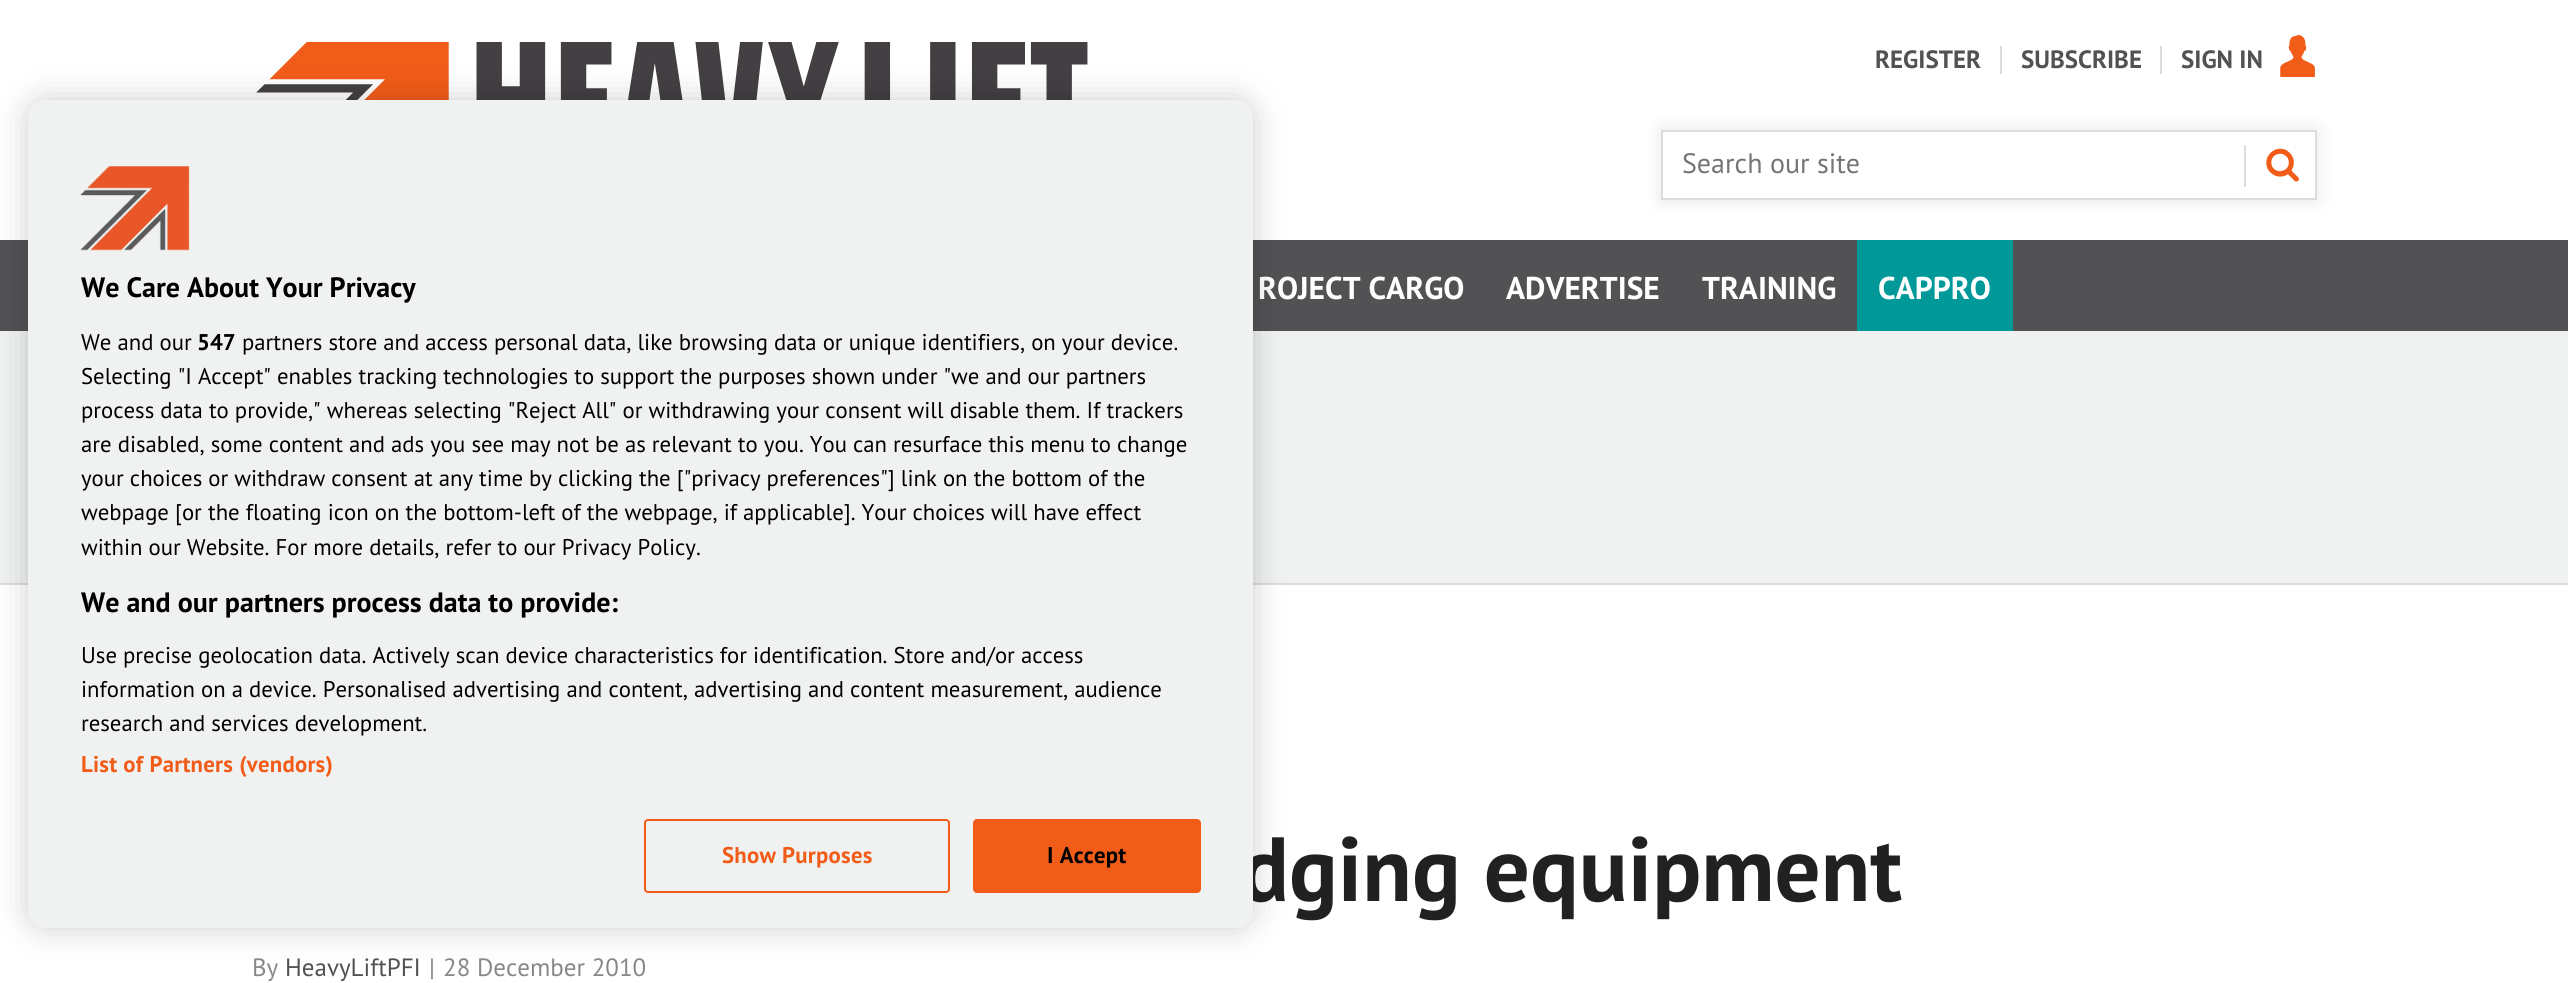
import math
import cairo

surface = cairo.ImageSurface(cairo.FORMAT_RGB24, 2568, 983)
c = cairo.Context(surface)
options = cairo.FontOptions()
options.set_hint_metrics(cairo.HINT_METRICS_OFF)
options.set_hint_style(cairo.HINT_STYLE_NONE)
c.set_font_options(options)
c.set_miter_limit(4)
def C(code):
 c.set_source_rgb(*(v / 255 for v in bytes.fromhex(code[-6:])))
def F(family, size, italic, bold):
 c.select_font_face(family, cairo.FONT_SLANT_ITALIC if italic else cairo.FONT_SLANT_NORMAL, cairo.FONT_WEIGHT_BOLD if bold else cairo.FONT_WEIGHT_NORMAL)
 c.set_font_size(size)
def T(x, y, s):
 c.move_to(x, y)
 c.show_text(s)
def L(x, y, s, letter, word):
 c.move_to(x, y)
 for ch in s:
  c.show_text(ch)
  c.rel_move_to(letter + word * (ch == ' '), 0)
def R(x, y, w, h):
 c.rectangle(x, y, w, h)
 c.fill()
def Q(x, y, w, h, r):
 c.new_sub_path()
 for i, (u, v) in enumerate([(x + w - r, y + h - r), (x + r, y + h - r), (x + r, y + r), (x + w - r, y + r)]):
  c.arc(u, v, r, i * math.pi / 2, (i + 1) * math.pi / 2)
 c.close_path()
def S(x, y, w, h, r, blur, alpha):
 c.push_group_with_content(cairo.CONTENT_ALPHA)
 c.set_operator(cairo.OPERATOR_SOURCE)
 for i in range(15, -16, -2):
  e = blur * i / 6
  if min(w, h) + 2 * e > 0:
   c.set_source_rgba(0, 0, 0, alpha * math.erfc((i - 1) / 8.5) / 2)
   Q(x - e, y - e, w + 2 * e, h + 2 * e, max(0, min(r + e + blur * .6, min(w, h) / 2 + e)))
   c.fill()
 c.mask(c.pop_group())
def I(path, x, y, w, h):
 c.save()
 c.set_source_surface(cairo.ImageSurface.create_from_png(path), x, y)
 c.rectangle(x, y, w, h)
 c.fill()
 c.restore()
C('ffffff')
c.paint()
I('1.png',256,42,832,58)
F('PT Sans',25,0,1)
C('525153')
T(1875,68,'REGISTER')
C('dcdcdc')
R(2000,46,2,28)
C('525153')
T(2021,68,'SUBSCRIBE')
C('dcdcdc')
R(2160,46,2,28)
C('525153')
T(2181,68,'SIGN IN')
I('2.png',2280,35,35,42)
C('000000')
S(1661,130,656,70,0,9,.1)
C('ffffff')
c.rectangle(1662,131,654,68)
c.fill_preserve()
C('dcdcdc')
c.stroke()
F('PT Sans',28,0,0)
C('757575')
T(1682,173,'Search our site')
I('3.png',2266,148,33,34)
C('dcdcdc')
R(2244,145,2,42)
C('525153')
R(0,240,2568,91)
F('PT Sans',31.5,0,1)
C('ffffff')
T(1258,299,'ROJECT CARGO')
T(1506,299,'ADVERTISE')
T(1702,299,'TRAINING')
C('009898')
R(1857,240,156,91)
C('ffffff')
T(1878,299,'CAPPRO')
C('f0f2f2')
R(0,331,2568,252)
C('dcdcdc')
R(0,583,2568,2)
F('PT Sans',91,0,1)
C('212121')
T(1240,901,'dging equipment')
F('PT Sans',25,0,0)
C('888888')
T(252,976,'By')
C('525153')
T(285,976,'HeavyLiftPFI')
C('888888')
T(429,976,'|')
T(443,976,'28 December 2010')
C('000000')
S(28,100,1225,828,18,16,.2)
C('f0f2f2')
Q(28,100,1225,828,18)
c.fill()
F('PT Sans',28,0,1)
C('000000')
T(81,297,'We Care About Your Privacy')
F('PT Sans',22.75,0,0)
T(81,350,'We and our')
F('PT Sans',22.75,0,1)
T(197,350,'547')
F('PT Sans',22.75,0,0)
T(242,350,'partners store and access personal data, like browsing data or unique identifiers, on your device.')
T(81,384,'Selecting "I Accept" enables tracking technologies to support the purposes shown under "we and our partners')
T(81,418,'process data to provide," whereas selecting "Reject All" or withdrawing your consent will disable them. If trackers')
T(81,452,'are disabled, some content and ads you see may not be as relevant to you. You can resurface this menu to change')
T(81,486,'your choices or withdraw consent at any time by clicking the ["privacy preferences"] link on the bottom of the')
T(81,520,'webpage [or the floating icon on the bottom-left of the webpage, if applicable]. Your choices will have effect')
T(81,555,'within our Website. For more details, refer to our Privacy Policy.')
F('PT Sans',28,0,1)
T(81,612,'We and our partners process data to provide:')
F('PT Sans',22.75,0,0)
T(81,663,'Use precise geolocation data. Actively scan device characteristics for identification. Store and/or access')
T(81,697,'information on a device. Personalised advertising and content, advertising and content measurement, audience')
T(81,731,'research and services development.')
F('PT Sans',22.75,0,1)
C('f25c19')
L(81,772,'List of Partners (vendors)',.25,0)
I('4.png',80,166,110,85)
Q(645,820,304,72,3)
c.stroke()
L(722,863,'Show Purposes',.25,0)
Q(974,820,226,72,3)
c.fill_preserve()
c.stroke()
C('000000')
L(1047,863,'I Accept',.25,0)
surface.write_to_png('o.png')
